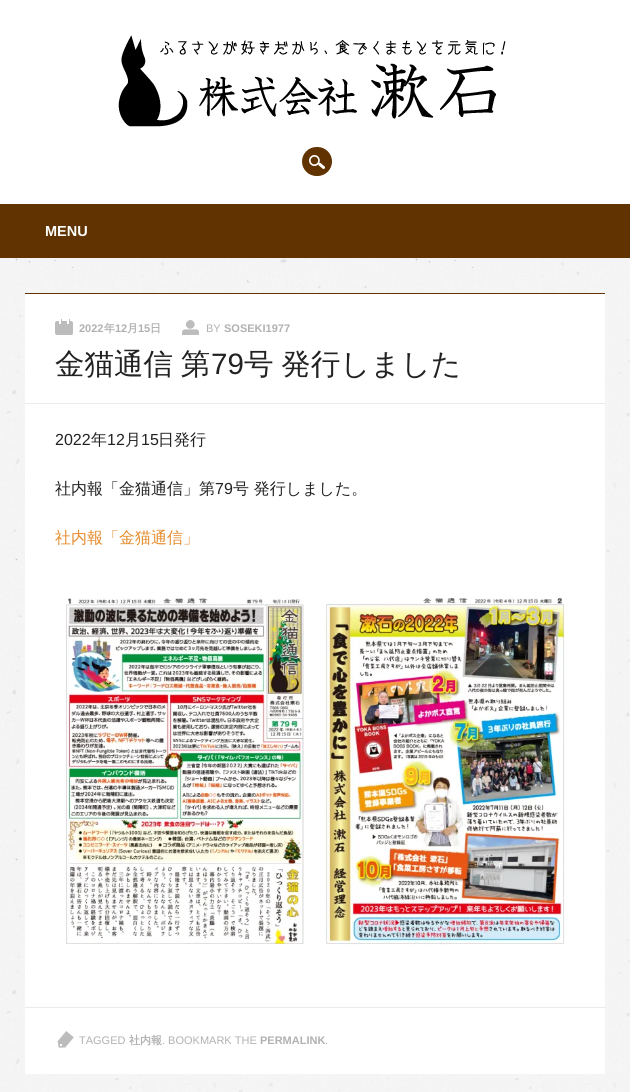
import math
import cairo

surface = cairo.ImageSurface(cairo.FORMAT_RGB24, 630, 1092)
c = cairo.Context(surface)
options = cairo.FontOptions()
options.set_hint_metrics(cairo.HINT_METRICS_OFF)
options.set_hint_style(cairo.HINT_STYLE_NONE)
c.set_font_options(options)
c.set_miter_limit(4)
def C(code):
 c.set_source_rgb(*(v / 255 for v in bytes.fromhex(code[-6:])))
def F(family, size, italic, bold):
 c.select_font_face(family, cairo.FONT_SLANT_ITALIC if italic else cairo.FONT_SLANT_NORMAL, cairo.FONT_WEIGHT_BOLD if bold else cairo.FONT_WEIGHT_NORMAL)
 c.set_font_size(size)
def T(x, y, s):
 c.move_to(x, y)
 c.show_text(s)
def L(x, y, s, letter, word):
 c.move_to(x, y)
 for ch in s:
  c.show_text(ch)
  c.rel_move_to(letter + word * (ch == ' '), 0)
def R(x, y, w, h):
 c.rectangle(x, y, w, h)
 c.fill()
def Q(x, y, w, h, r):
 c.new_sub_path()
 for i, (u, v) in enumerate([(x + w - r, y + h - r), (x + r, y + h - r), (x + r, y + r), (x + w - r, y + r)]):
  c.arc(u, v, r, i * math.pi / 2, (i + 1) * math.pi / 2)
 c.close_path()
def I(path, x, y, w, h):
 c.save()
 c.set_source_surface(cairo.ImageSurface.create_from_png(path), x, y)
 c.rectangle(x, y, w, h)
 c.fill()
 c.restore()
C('ffffff')
c.paint()
I('1.png',0,258,630,834)
I('2.png',118,35,388,92)
C('603300')
Q(302,147,30,29,14.5)
c.fill()
I('3.png',309,155,16,14)
R(0,204,630,54)
F('Liberation Sans',14.5,0,1)
C('ffffff')
T(45,236,'MENU')
R(25,294,580,780)
C('603300')
R(25,293,580,1)
I('4.png',55,319,18,16)
F('Liberation Sans',11,0,1)
C('b1b1b1')
T(79,332,'2022')
F('WenQuanYi Zen Hei',11,0,1)
T(104,332,'年')
F('Liberation Sans',11,0,1)
T(115,332,'12')
F('WenQuanYi Zen Hei',11,0,1)
T(127,332,'月')
F('Liberation Sans',11,0,1)
T(138,332,'15')
F('WenQuanYi Zen Hei',11,0,1)
T(150,332,'日')
I('5.png',182,320,17,15)
F('Liberation Sans',11,0,0)
T(206,332,'BY')
F('Liberation Sans',11,0,1)
T(224,332,'SOSEKI1977')
F('WenQuanYi Zen Hei Medium',29.5,0,0)
C('222222')
L(55,374,'金猫通信 第',0,-1)
F('Liberation Sans',29.5,0,0)
T(211,374,'79')
F('WenQuanYi Zen Hei Medium',29.5,0,0)
L(244,374,'号 発行しました',0,-1)
C('ebebeb')
R(25,403,580,1)
F('Liberation Sans',16,0,0)
C('222222')
T(55,445,'2022')
F('WenQuanYi Zen Hei Medium',16,0,0)
T(91,445,'年')
F('Liberation Sans',16,0,0)
T(107,445,'12')
F('WenQuanYi Zen Hei Medium',16,0,0)
T(125,445,'月')
F('Liberation Sans',16,0,0)
T(141,445,'15')
F('WenQuanYi Zen Hei Medium',16,0,0)
T(158,445,'日発行')
T(55,494,'社内報「金猫通信」第')
F('Liberation Sans',16,0,0)
T(215,494,'79')
F('WenQuanYi Zen Hei Medium',16,0,0)
T(233,494,'号 発行しました。')
C('e68b2b')
T(55,543,'社内報「金猫通信」')
I('6.png',66,598,499,347)
C('ebebeb')
R(25,1007,580,1)
I('7.png',57,1031,17,17)
F('Liberation Sans',11,0,0)
C('b1b1b1')
T(79,1044,'TAGGED')
F('WenQuanYi Zen Hei',11,0,1)
T(129,1044,'社内報')
F('Liberation Sans',11,0,0)
T(162,1044,'. BOOKMARK THE')
F('Liberation Sans',11,0,1)
T(260,1044,'PERMALINK')
F('Liberation Sans',11,0,0)
T(325,1044,'.')
surface.write_to_png('o.png')
